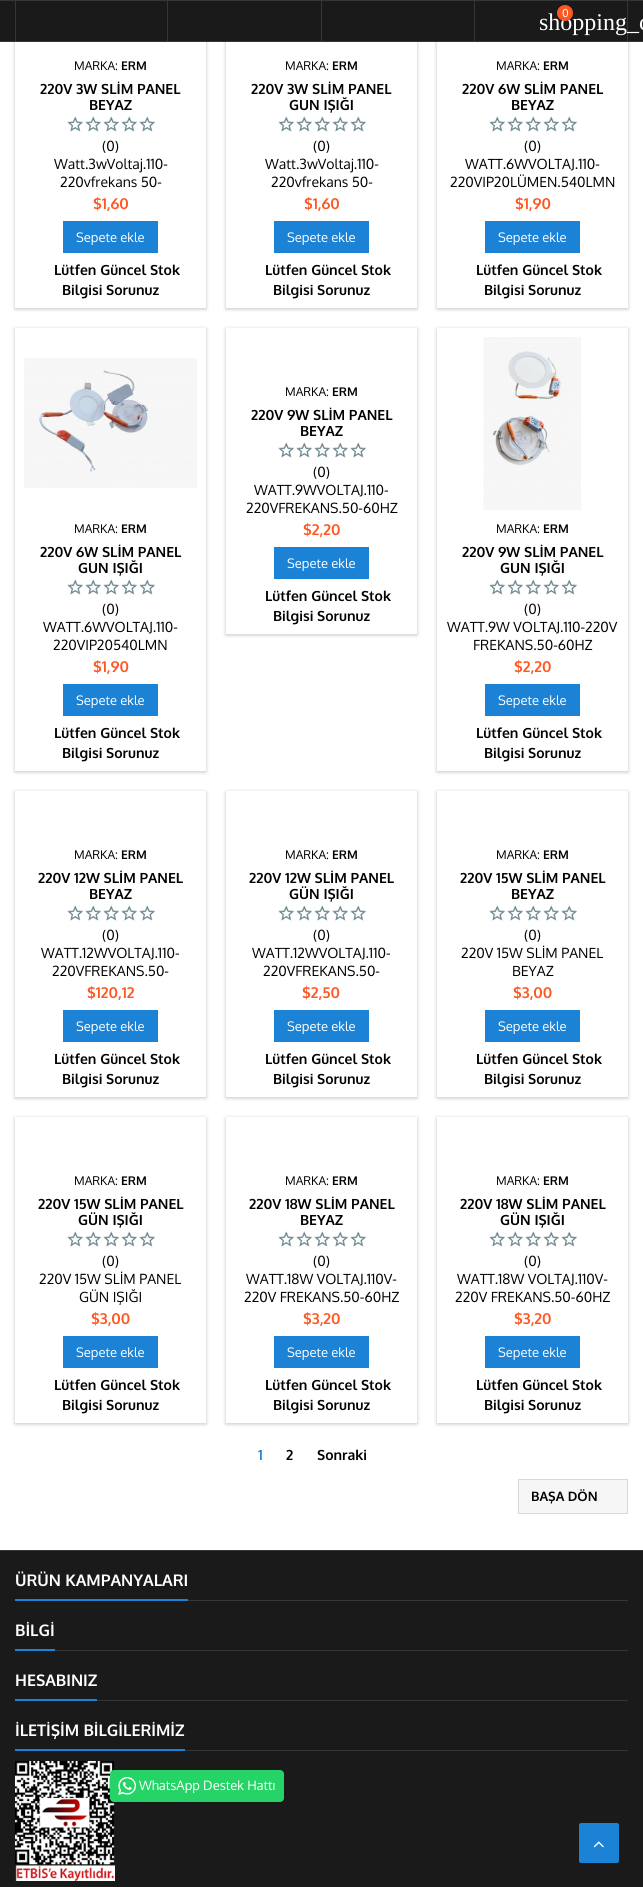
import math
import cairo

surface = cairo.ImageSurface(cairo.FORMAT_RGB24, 643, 1887)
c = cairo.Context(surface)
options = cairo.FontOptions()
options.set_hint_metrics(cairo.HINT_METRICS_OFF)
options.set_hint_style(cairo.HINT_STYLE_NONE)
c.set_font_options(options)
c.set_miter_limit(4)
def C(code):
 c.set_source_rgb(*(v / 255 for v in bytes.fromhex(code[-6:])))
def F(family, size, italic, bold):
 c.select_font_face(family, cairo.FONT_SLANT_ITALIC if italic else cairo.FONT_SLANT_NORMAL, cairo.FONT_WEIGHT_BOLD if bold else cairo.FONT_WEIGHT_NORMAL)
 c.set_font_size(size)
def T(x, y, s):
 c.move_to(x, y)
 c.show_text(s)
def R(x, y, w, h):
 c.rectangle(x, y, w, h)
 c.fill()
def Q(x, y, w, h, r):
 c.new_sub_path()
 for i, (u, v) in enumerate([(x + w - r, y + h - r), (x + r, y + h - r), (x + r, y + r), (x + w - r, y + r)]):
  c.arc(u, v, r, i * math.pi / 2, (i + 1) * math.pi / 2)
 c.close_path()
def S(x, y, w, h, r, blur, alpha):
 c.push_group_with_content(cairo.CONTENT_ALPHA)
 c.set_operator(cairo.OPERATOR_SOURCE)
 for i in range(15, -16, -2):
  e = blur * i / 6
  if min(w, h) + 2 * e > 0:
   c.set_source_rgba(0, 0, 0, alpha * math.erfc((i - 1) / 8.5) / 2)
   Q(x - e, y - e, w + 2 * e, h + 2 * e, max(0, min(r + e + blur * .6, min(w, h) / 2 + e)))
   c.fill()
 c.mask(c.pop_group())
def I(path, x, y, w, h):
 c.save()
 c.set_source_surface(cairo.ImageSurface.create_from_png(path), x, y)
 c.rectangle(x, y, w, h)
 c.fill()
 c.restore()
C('ffffff')
c.paint()
c.save()
c.set_fill_rule(cairo.FILL_RULE_EVEN_ODD)
c.new_path()
c.move_to(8,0)
c.line_to(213,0)
c.line_to(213,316)
c.line_to(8,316)
c.close_path()
c.move_to(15,-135)
c.line_to(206,-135)
c.line_to(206,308)
c.line_to(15,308)
c.close_path()
c.clip()
C('000000')
S(15,-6,191,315,0,2,.24)
c.restore()
c.save()
c.set_fill_rule(cairo.FILL_RULE_EVEN_ODD)
c.new_path()
c.move_to(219,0)
c.line_to(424,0)
c.line_to(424,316)
c.line_to(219,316)
c.close_path()
c.move_to(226,-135)
c.line_to(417,-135)
c.line_to(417,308)
c.line_to(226,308)
c.close_path()
c.clip()
C('000000')
S(226,-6,191,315,0,2,.24)
c.restore()
c.save()
c.set_fill_rule(cairo.FILL_RULE_EVEN_ODD)
c.new_path()
c.move_to(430,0)
c.line_to(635,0)
c.line_to(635,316)
c.line_to(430,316)
c.close_path()
c.move_to(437,-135)
c.line_to(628,-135)
c.line_to(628,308)
c.line_to(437,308)
c.close_path()
c.clip()
C('000000')
S(437,-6,191,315,0,2,.24)
c.restore()
C('1b1a1b')
R(0,1,643,40)
C('363636')
R(0,0,643,1)
R(0,41,643,1)
R(167,1,1,40)
R(15,1,1,40)
R(321,1,1,40)
R(474,1,1,40)
R(627,1,1,40)
F('Liberation Serif',24,0,0)
C('ffffff')
T(539,30,'shopping_c')
C('ff5722')
c.new_path()
c.arc(565,13,8,0,2 * math.pi)
c.fill()
F('Oxygen',11,0,0)
C('ffffff')
T(562,17,'0')
F('Oxygen',12,0,0)
C('000000')
T(74,70,'MARKA:')
F('Oxygen',12,0,1)
T(121,70,'ERM')
F('Oxygen',14,0,1)
T(40,94,'220V 3W SLİM PANEL')
T(89,110,'BEYAZ')
I('1.png',67,116,16,16)
I('1.png',85,116,16,16)
I('1.png',103,116,16,16)
I('1.png',121,116,16,16)
I('1.png',139,116,16,16)
F('Oxygen',14,0,0)
T(102,151,'(0)')
T(54,169,'Watt.3wVoltaj.110-')
T(60,187,'220vfrekans 50-')
F('Oxygen',15,0,1)
C('ff5722')
T(93,209,'$1,60')
C('1b82d6')
R(63,221,95,32)
F('Oxygen',13,0,0)
C('ffffff')
T(76,242,'Sepete ekle')
F('Oxygen',14,0,1)
C('000000')
T(54,275,'Lütfen Güncel Stok')
T(62,295,'Bilgisi Sorunuz')
F('Oxygen',12,0,0)
T(285,70,'MARKA:')
F('Oxygen',12,0,1)
T(332,70,'ERM')
F('Oxygen',14,0,1)
T(251,94,'220V 3W SLİM PANEL')
T(289,110,'GUN IŞIĞI')
I('1.png',278,116,16,16)
I('1.png',296,116,16,16)
I('1.png',314,116,16,16)
I('1.png',332,116,16,16)
I('1.png',350,116,16,16)
F('Oxygen',14,0,0)
T(313,151,'(0)')
T(265,169,'Watt.3wVoltaj.110-')
T(271,187,'220vfrekans 50-')
F('Oxygen',15,0,1)
C('ff5722')
T(304,209,'$1,60')
C('1b82d6')
R(274,221,95,32)
F('Oxygen',13,0,0)
C('ffffff')
T(287,242,'Sepete ekle')
F('Oxygen',14,0,1)
C('000000')
T(265,275,'Lütfen Güncel Stok')
T(273,295,'Bilgisi Sorunuz')
F('Oxygen',12,0,0)
T(496,70,'MARKA:')
F('Oxygen',12,0,1)
T(543,70,'ERM')
F('Oxygen',14,0,1)
T(462,94,'220V 6W SLİM PANEL')
T(511,110,'BEYAZ')
I('1.png',489,116,16,16)
I('1.png',507,116,16,16)
I('1.png',525,116,16,16)
I('1.png',543,116,16,16)
I('1.png',561,116,16,16)
F('Oxygen',14,0,0)
T(524,151,'(0)')
T(465,169,'WATT.6WVOLTAJ.110-')
T(450,187,'220VIP20LÜMEN.540LMN')
F('Oxygen',15,0,1)
C('ff5722')
T(515,209,'$1,90')
C('1b82d6')
R(485,221,95,32)
F('Oxygen',13,0,0)
C('ffffff')
T(498,242,'Sepete ekle')
F('Oxygen',14,0,1)
C('000000')
T(476,275,'Lütfen Güncel Stok')
T(484,295,'Bilgisi Sorunuz')
c.save()
c.set_fill_rule(cairo.FILL_RULE_EVEN_ODD)
c.new_path()
c.move_to(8,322)
c.line_to(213,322)
c.line_to(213,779)
c.line_to(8,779)
c.close_path()
c.move_to(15,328)
c.line_to(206,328)
c.line_to(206,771)
c.line_to(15,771)
c.close_path()
c.clip()
C('000000')
S(15,329,191,443,0,2,.24)
c.restore()
I('2.png',24,358,173,130)
F('Oxygen',12,0,0)
T(74,533,'MARKA:')
F('Oxygen',12,0,1)
T(121,533,'ERM')
F('Oxygen',14,0,1)
T(40,557,'220V 6W SLİM PANEL')
T(78,573,'GUN IŞIĞI')
I('1.png',67,579,16,16)
I('1.png',85,579,16,16)
I('1.png',103,579,16,16)
I('1.png',121,579,16,16)
I('1.png',139,579,16,16)
F('Oxygen',14,0,0)
T(102,614,'(0)')
T(43,632,'WATT.6WVOLTAJ.110-')
T(53,650,'220VIP20540LMN')
F('Oxygen',15,0,1)
C('ff5722')
T(93,672,'$1,90')
C('1b82d6')
R(63,684,95,32)
F('Oxygen',13,0,0)
C('ffffff')
T(76,705,'Sepete ekle')
F('Oxygen',14,0,1)
C('000000')
T(54,738,'Lütfen Güncel Stok')
T(62,758,'Bilgisi Sorunuz')
c.save()
c.set_fill_rule(cairo.FILL_RULE_EVEN_ODD)
c.new_path()
c.move_to(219,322)
c.line_to(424,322)
c.line_to(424,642)
c.line_to(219,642)
c.close_path()
c.move_to(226,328)
c.line_to(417,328)
c.line_to(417,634)
c.line_to(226,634)
c.close_path()
c.clip()
C('000000')
S(226,329,191,306,0,2,.24)
c.restore()
F('Oxygen',12,0,0)
T(285,396,'MARKA:')
F('Oxygen',12,0,1)
T(332,396,'ERM')
F('Oxygen',14,0,1)
T(251,420,'220V 9W SLİM PANEL')
T(300,436,'BEYAZ')
I('1.png',278,442,16,16)
I('1.png',296,442,16,16)
I('1.png',314,442,16,16)
I('1.png',332,442,16,16)
I('1.png',350,442,16,16)
F('Oxygen',14,0,0)
T(313,477,'(0)')
T(254,495,'WATT.9WVOLTAJ.110-')
T(246,513,'220VFREKANS.50-60HZ')
F('Oxygen',15,0,1)
C('ff5722')
T(303,535,'$2,20')
C('1b82d6')
R(274,547,95,32)
F('Oxygen',13,0,0)
C('ffffff')
T(287,568,'Sepete ekle')
F('Oxygen',14,0,1)
C('000000')
T(265,601,'Lütfen Güncel Stok')
T(273,621,'Bilgisi Sorunuz')
c.save()
c.set_fill_rule(cairo.FILL_RULE_EVEN_ODD)
c.new_path()
c.move_to(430,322)
c.line_to(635,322)
c.line_to(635,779)
c.line_to(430,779)
c.close_path()
c.move_to(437,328)
c.line_to(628,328)
c.line_to(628,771)
c.line_to(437,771)
c.close_path()
c.clip()
C('000000')
S(437,329,191,443,0,2,.24)
c.restore()
I('3.png',483,337,98,173)
F('Oxygen',12,0,0)
T(496,533,'MARKA:')
F('Oxygen',12,0,1)
T(543,533,'ERM')
F('Oxygen',14,0,1)
T(462,557,'220V 9W SLİM PANEL')
T(500,573,'GUN IŞIĞI')
I('1.png',489,579,16,16)
I('1.png',507,579,16,16)
I('1.png',525,579,16,16)
I('1.png',543,579,16,16)
I('1.png',561,579,16,16)
F('Oxygen',14,0,0)
T(524,614,'(0)')
T(447,632,'WATT.9W VOLTAJ.110-220V')
T(473,650,'FREKANS.50-60HZ')
F('Oxygen',15,0,1)
C('ff5722')
T(514,672,'$2,20')
C('1b82d6')
R(485,684,95,32)
F('Oxygen',13,0,0)
C('ffffff')
T(498,705,'Sepete ekle')
F('Oxygen',14,0,1)
C('000000')
T(476,738,'Lütfen Güncel Stok')
T(484,758,'Bilgisi Sorunuz')
c.save()
c.set_fill_rule(cairo.FILL_RULE_EVEN_ODD)
c.new_path()
c.move_to(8,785)
c.line_to(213,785)
c.line_to(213,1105)
c.line_to(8,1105)
c.close_path()
c.move_to(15,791)
c.line_to(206,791)
c.line_to(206,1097)
c.line_to(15,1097)
c.close_path()
c.clip()
C('000000')
S(15,792,191,306,0,2,.24)
c.restore()
F('Oxygen',12,0,0)
T(74,859,'MARKA:')
F('Oxygen',12,0,1)
T(121,859,'ERM')
F('Oxygen',14,0,1)
T(38,883,'220V 12W SLİM PANEL')
T(89,899,'BEYAZ')
I('1.png',67,905,16,16)
I('1.png',85,905,16,16)
I('1.png',103,905,16,16)
I('1.png',121,905,16,16)
I('1.png',139,905,16,16)
F('Oxygen',14,0,0)
T(102,940,'(0)')
T(41,958,'WATT.12WVOLTAJ.110-')
T(52,976,'220VFREKANS.50-')
F('Oxygen',15,0,1)
C('ff5722')
T(87,998,'$120,12')
C('1b82d6')
R(63,1010,95,32)
F('Oxygen',13,0,0)
C('ffffff')
T(76,1031,'Sepete ekle')
F('Oxygen',14,0,1)
C('000000')
T(54,1064,'Lütfen Güncel Stok')
T(62,1084,'Bilgisi Sorunuz')
c.save()
c.set_fill_rule(cairo.FILL_RULE_EVEN_ODD)
c.new_path()
c.move_to(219,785)
c.line_to(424,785)
c.line_to(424,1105)
c.line_to(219,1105)
c.close_path()
c.move_to(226,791)
c.line_to(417,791)
c.line_to(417,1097)
c.line_to(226,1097)
c.close_path()
c.clip()
C('000000')
S(226,792,191,306,0,2,.24)
c.restore()
F('Oxygen',12,0,0)
T(285,859,'MARKA:')
F('Oxygen',12,0,1)
T(332,859,'ERM')
F('Oxygen',14,0,1)
T(249,883,'220V 12W SLİM PANEL')
T(289,899,'GÜN IŞIĞI')
I('1.png',278,905,16,16)
I('1.png',296,905,16,16)
I('1.png',314,905,16,16)
I('1.png',332,905,16,16)
I('1.png',350,905,16,16)
F('Oxygen',14,0,0)
T(313,940,'(0)')
T(252,958,'WATT.12WVOLTAJ.110-')
T(263,976,'220VFREKANS.50-')
F('Oxygen',15,0,1)
C('ff5722')
T(302,998,'$2,50')
C('1b82d6')
R(274,1010,95,32)
F('Oxygen',13,0,0)
C('ffffff')
T(287,1031,'Sepete ekle')
F('Oxygen',14,0,1)
C('000000')
T(265,1064,'Lütfen Güncel Stok')
T(273,1084,'Bilgisi Sorunuz')
c.save()
c.set_fill_rule(cairo.FILL_RULE_EVEN_ODD)
c.new_path()
c.move_to(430,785)
c.line_to(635,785)
c.line_to(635,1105)
c.line_to(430,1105)
c.close_path()
c.move_to(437,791)
c.line_to(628,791)
c.line_to(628,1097)
c.line_to(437,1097)
c.close_path()
c.clip()
C('000000')
S(437,792,191,306,0,2,.24)
c.restore()
F('Oxygen',12,0,0)
T(496,859,'MARKA:')
F('Oxygen',12,0,1)
T(543,859,'ERM')
F('Oxygen',14,0,1)
T(460,883,'220V 15W SLİM PANEL')
T(511,899,'BEYAZ')
I('1.png',489,905,16,16)
I('1.png',507,905,16,16)
I('1.png',525,905,16,16)
I('1.png',543,905,16,16)
I('1.png',561,905,16,16)
F('Oxygen',14,0,0)
T(524,940,'(0)')
T(461,958,'220V 15W SLİM PANEL')
T(512,976,'BEYAZ')
F('Oxygen',15,0,1)
C('ff5722')
T(513,998,'$3,00')
C('1b82d6')
R(485,1010,95,32)
F('Oxygen',13,0,0)
C('ffffff')
T(498,1031,'Sepete ekle')
F('Oxygen',14,0,1)
C('000000')
T(476,1064,'Lütfen Güncel Stok')
T(484,1084,'Bilgisi Sorunuz')
c.save()
c.set_fill_rule(cairo.FILL_RULE_EVEN_ODD)
c.new_path()
c.move_to(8,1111)
c.line_to(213,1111)
c.line_to(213,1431)
c.line_to(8,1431)
c.close_path()
c.move_to(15,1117)
c.line_to(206,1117)
c.line_to(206,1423)
c.line_to(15,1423)
c.close_path()
c.clip()
C('000000')
S(15,1118,191,306,0,2,.24)
c.restore()
F('Oxygen',12,0,0)
T(74,1185,'MARKA:')
F('Oxygen',12,0,1)
T(121,1185,'ERM')
F('Oxygen',14,0,1)
T(38,1209,'220V 15W SLİM PANEL')
T(78,1225,'GÜN IŞIĞI')
I('1.png',67,1231,16,16)
I('1.png',85,1231,16,16)
I('1.png',103,1231,16,16)
I('1.png',121,1231,16,16)
I('1.png',139,1231,16,16)
F('Oxygen',14,0,0)
T(102,1266,'(0)')
T(39,1284,'220V 15W SLİM PANEL')
T(79,1302,'GÜN IŞIĞI')
F('Oxygen',15,0,1)
C('ff5722')
T(91,1324,'$3,00')
C('1b82d6')
R(63,1336,95,32)
F('Oxygen',13,0,0)
C('ffffff')
T(76,1357,'Sepete ekle')
F('Oxygen',14,0,1)
C('000000')
T(54,1390,'Lütfen Güncel Stok')
T(62,1410,'Bilgisi Sorunuz')
c.save()
c.set_fill_rule(cairo.FILL_RULE_EVEN_ODD)
c.new_path()
c.move_to(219,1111)
c.line_to(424,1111)
c.line_to(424,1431)
c.line_to(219,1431)
c.close_path()
c.move_to(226,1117)
c.line_to(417,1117)
c.line_to(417,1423)
c.line_to(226,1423)
c.close_path()
c.clip()
C('000000')
S(226,1118,191,306,0,2,.24)
c.restore()
F('Oxygen',12,0,0)
T(285,1185,'MARKA:')
F('Oxygen',12,0,1)
T(332,1185,'ERM')
F('Oxygen',14,0,1)
T(249,1209,'220V 18W SLİM PANEL')
T(300,1225,'BEYAZ')
I('1.png',278,1231,16,16)
I('1.png',296,1231,16,16)
I('1.png',314,1231,16,16)
I('1.png',332,1231,16,16)
I('1.png',350,1231,16,16)
F('Oxygen',14,0,0)
T(313,1266,'(0)')
T(246,1284,'WATT.18W VOLTAJ.110V-')
T(244,1302,'220V FREKANS.50-60HZ')
F('Oxygen',15,0,1)
C('ff5722')
T(303,1324,'$3,20')
C('1b82d6')
R(274,1336,95,32)
F('Oxygen',13,0,0)
C('ffffff')
T(287,1357,'Sepete ekle')
F('Oxygen',14,0,1)
C('000000')
T(265,1390,'Lütfen Güncel Stok')
T(273,1410,'Bilgisi Sorunuz')
c.save()
c.set_fill_rule(cairo.FILL_RULE_EVEN_ODD)
c.new_path()
c.move_to(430,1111)
c.line_to(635,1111)
c.line_to(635,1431)
c.line_to(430,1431)
c.close_path()
c.move_to(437,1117)
c.line_to(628,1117)
c.line_to(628,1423)
c.line_to(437,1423)
c.close_path()
c.clip()
C('000000')
S(437,1118,191,306,0,2,.24)
c.restore()
F('Oxygen',12,0,0)
T(496,1185,'MARKA:')
F('Oxygen',12,0,1)
T(543,1185,'ERM')
F('Oxygen',14,0,1)
T(460,1209,'220V 18W SLİM PANEL')
T(500,1225,'GÜN IŞIĞI')
I('1.png',489,1231,16,16)
I('1.png',507,1231,16,16)
I('1.png',525,1231,16,16)
I('1.png',543,1231,16,16)
I('1.png',561,1231,16,16)
F('Oxygen',14,0,0)
T(524,1266,'(0)')
T(457,1284,'WATT.18W VOLTAJ.110V-')
T(455,1302,'220V FREKANS.50-60HZ')
F('Oxygen',15,0,1)
C('ff5722')
T(514,1324,'$3,20')
C('1b82d6')
R(485,1336,95,32)
F('Oxygen',13,0,0)
C('ffffff')
T(498,1357,'Sepete ekle')
F('Oxygen',14,0,1)
C('000000')
T(476,1390,'Lütfen Güncel Stok')
T(484,1410,'Bilgisi Sorunuz')
C('1b82d6')
T(258,1460,'1')
C('000000')
T(286,1460,'2')
T(317,1460,'Sonraki')
C('f6f6f6')
c.rectangle(518.5,1479.5,109,34)
c.fill_preserve()
C('d8d8d8')
c.set_line_width(1)
c.stroke()
F('Oxygen',13,0,1)
C('000000')
T(531,1501,'BAŞA DÖN')
C('1b1a1b')
R(0,1551,643,336)
C('363636')
R(0,1550,643,1)
R(188,1600,440,1)
C('1b82d6')
R(15,1599,173,2)
F('Oxygen',16,0,1)
C('ffffff')
T(15,1586,'ÜRÜN KAMPANYALARI')
C('363636')
R(55,1650,573,1)
C('1b82d6')
R(15,1649,40,2)
C('ffffff')
T(15,1636,'BİLGİ')
C('363636')
R(97,1700,531,1)
C('1b82d6')
R(15,1699,82,2)
C('ffffff')
T(15,1686,'HESABINIZ')
C('363636')
R(185,1750,443,1)
C('1b82d6')
R(15,1749,170,2)
C('ffffff')
T(15,1736,'İLETİŞİM BİLGİLERİMİZ')
I('4.png',15,1761,100,120)
C('1b82d6')
Q(579,1823,40,40,2)
c.fill()
I('5.png',593,1841,11,7)
C('25d366')
Q(110,1770,174,32,4)
c.fill()
I('6.png',118,1777,18,18)
F('Oxygen',13,0,0)
C('ffffff')
T(139,1790,'WhatsApp Destek Hattı')
surface.write_to_png('o.png')
